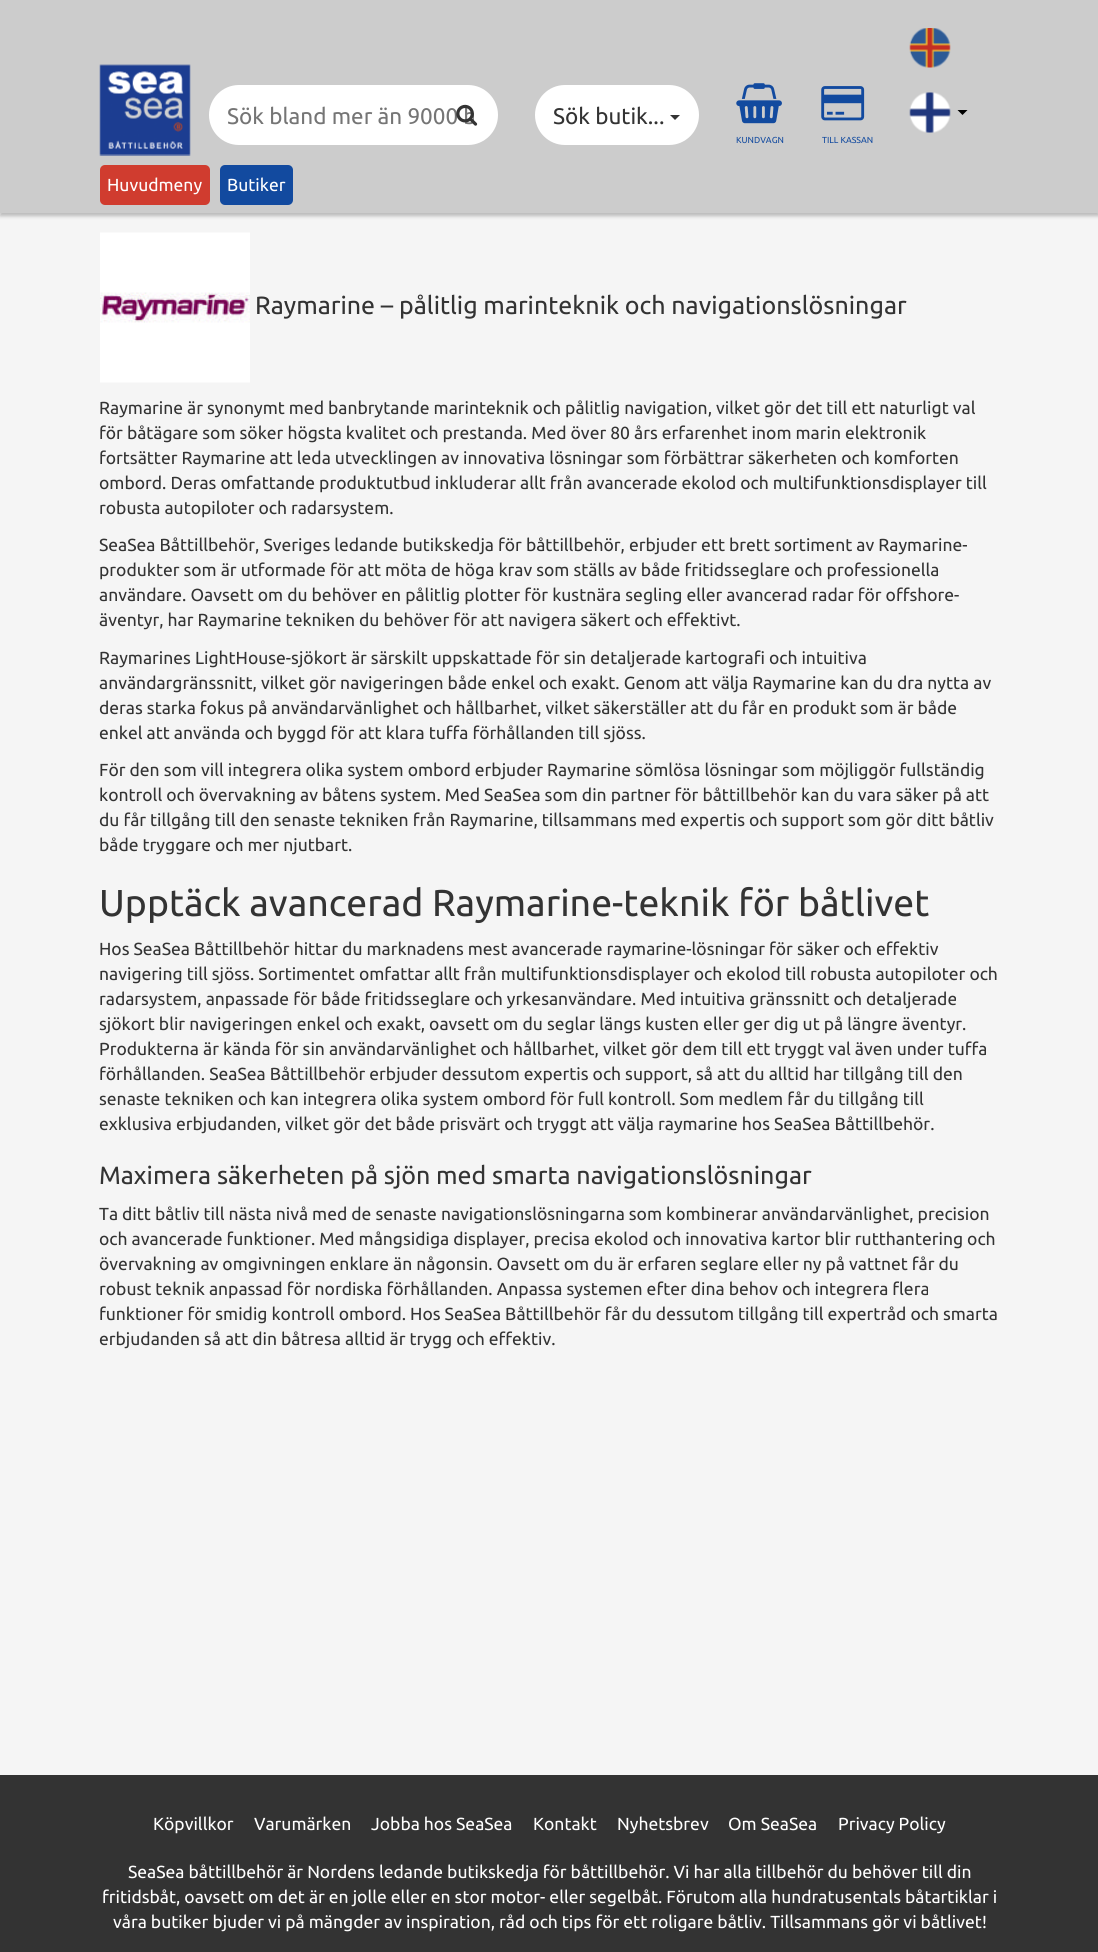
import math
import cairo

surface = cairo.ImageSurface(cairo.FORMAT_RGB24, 1098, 1952)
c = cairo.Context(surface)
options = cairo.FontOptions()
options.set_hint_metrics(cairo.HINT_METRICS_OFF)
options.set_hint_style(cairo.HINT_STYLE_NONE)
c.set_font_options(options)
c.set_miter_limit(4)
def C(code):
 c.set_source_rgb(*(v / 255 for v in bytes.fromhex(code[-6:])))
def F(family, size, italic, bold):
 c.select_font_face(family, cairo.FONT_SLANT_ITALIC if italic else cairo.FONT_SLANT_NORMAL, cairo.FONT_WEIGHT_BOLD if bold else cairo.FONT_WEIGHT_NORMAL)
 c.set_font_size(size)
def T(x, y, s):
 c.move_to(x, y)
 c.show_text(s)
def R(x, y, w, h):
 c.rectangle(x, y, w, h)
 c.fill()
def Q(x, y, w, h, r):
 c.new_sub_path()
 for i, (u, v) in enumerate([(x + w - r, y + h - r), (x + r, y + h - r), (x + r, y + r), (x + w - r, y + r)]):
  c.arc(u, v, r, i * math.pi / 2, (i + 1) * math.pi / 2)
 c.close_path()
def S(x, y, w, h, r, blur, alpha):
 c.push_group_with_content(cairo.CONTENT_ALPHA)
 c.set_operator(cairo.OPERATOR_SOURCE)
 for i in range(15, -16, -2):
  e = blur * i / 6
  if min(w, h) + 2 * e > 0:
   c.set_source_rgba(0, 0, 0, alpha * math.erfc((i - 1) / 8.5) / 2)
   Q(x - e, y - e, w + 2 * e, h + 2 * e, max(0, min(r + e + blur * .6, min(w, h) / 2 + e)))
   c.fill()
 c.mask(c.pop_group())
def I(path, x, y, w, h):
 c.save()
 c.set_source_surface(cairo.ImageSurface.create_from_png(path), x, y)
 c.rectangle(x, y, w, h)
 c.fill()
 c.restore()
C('f5f5f5')
c.paint()
C('cccccc')
R(0,0,1098,213)
c.save()
c.set_fill_rule(cairo.FILL_RULE_EVEN_ODD)
c.new_path()
c.move_to(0,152)
c.line_to(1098,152)
c.line_to(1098,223)
c.line_to(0,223)
c.close_path()
c.move_to(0,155)
c.line_to(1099,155)
c.line_to(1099,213)
c.line_to(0,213)
c.close_path()
c.clip()
C('000000')
S(0,159,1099,57,0,2,.25)
c.restore()
I('1.png',99,64,92,92)
C('ffffff')
Q(209,85,289,60,30)
c.fill()
c.save()
c.rectangle(228,103,246,26)
c.clip()
F('Ubuntu',22.5,0,0)
C('757575')
T(227,124,'Sök bland mer än 9000 b')
c.restore()
I('2.png',456,104,22,22)
Q(535,85,164,60,30)
c.fill()
F('Ubuntu',22.5,0,0)
C('333333')
T(553,124,'Sök butik...')
c.new_path()
c.move_to(670,115)
c.line_to(680,115)
c.line_to(675,120)
c.close_path()
c.fill()
I('3.png',909,28,42,40)
I('4.png',909,92,42,41)
C('000000')
c.new_path()
c.move_to(957.5,110)
c.line_to(967.5,110)
c.line_to(962.5,115)
c.close_path()
c.fill()
I('5.png',736,83,46,41)
F('Ubuntu',8.75,0,0)
C('124a9f')
T(736,143,'KUNDVAGN')
I('6.png',821,86,44,35)
T(822,143,'TILL KASSAN')
C('d03c2f')
Q(100,165,110,40,5)
c.fill()
F('Ubuntu',17.5,0,0)
C('ffffff')
T(107,191,'Huvudmeny')
C('124a9f')
Q(220,165,73,40,5)
c.fill()
C('ffffff')
T(227,191,'Butiker')
I('7.png',100,232,150,151)
F('Ubuntu',25,0,0)
C('333333')
T(255,314,'Raymarine – pålitlig marinteknik och navigationslösningar')
F('Ubuntu',17.5,0,0)
T(99,414,'Raymarine är synonymt med banbrytande marinteknik och pålitlig navigation, vilket gör det till ett naturligt val')
T(99,439,'för båtägare som söker högsta kvalitet och prestanda. Med över 80 års erfarenhet inom marin elektronik')
T(99,464,'fortsätter Raymarine att leda utvecklingen av innovativa lösningar som förbättrar säkerheten och komforten')
T(99,489,'ombord. Deras omfattande produktutbud inkluderar allt från avancerade ekolod och multifunktionsdisplayer till')
T(99,514,'robusta autopiloter och radarsystem.')
T(99,551,'SeaSea Båttillbehör, Sveriges ledande butikskedja för båttillbehör, erbjuder ett brett sortiment av Raymarine-')
T(99,576,'produkter som är utformade för att möta de höga krav som ställs av både fritidsseglare och professionella')
T(99,601,'användare. Oavsett om du behöver en pålitlig plotter för kustnära segling eller avancerad radar för offshore-')
T(99,626,'äventyr, har Raymarine tekniken du behöver för att navigera säkert och effektivt.')
T(99,664,'Raymarines LightHouse-sjökort är särskilt uppskattade för sin detaljerade kartografi och intuitiva')
T(99,689,'användargränssnitt, vilket gör navigeringen både enkel och exakt. Genom att välja Raymarine kan du dra nytta av')
T(99,714,'deras starka fokus på användarvänlighet och hållbarhet, vilket säkerställer att du får en produkt som är både')
T(99,739,'enkel att använda och byggd för att klara tuffa förhållanden till sjöss.')
T(99,776,'För den som vill integrera olika system ombord erbjuder Raymarine sömlösa lösningar som möjliggör fullständig')
T(99,801,'kontroll och övervakning av båtens system. Med SeaSea som din partner för båttillbehör kan du vara säker på att')
T(99,826,'du får tillgång till den senaste tekniken från Raymarine, tillsammans med expertis och support som gör ditt båtliv')
T(99,851,'både tryggare och mer njutbart.')
F('Ubuntu',37.5,0,0)
T(99,916,'Upptäck avancerad Raymarine-teknik för båtlivet')
F('Ubuntu',17.5,0,0)
T(99,955,'Hos SeaSea Båttillbehör hittar du marknadens mest avancerade raymarine-lösningar för säker och effektiv')
T(99,980,'navigering till sjöss. Sortimentet omfattar allt från multifunktionsdisplayer och ekolod till robusta autopiloter och')
T(99,1005,'radarsystem, anpassade för både fritidsseglare och yrkesanvändare. Med intuitiva gränssnitt och detaljerade')
T(99,1030,'sjökort blir navigeringen enkel och exakt, oavsett om du seglar längs kusten eller ger dig ut på längre äventyr.')
T(99,1055,'Produkterna är kända för sin användarvänlighet och hållbarhet, vilket gör dem till ett tryggt val även under tuffa')
T(99,1080,'förhållanden. SeaSea Båttillbehör erbjuder dessutom expertis och support, så att du alltid har tillgång till den')
T(99,1105,'senaste tekniken och kan integrera olika system ombord för full kontroll. Som medlem får du tillgång till')
T(99,1130,'exklusiva erbjudanden, vilket gör det både prisvärt och tryggt att välja raymarine hos SeaSea Båttillbehör.')
F('Ubuntu',25,0,0)
T(99,1184,'Maximera säkerheten på sjön med smarta navigationslösningar')
F('Ubuntu',17.5,0,0)
T(99,1220,'Ta ditt båtliv till nästa nivå med de senaste navigationslösningarna som kombinerar användarvänlighet, precision')
T(99,1245,'och avancerade funktioner. Med mångsidiga displayer, precisa ekolod och innovativa kartor blir rutthantering och')
T(99,1270,'övervakning av omgivningen enklare än någonsin. Oavsett om du är erfaren seglare eller ny på vattnet får du')
T(99,1295,'robust teknik anpassad för nordiska förhållanden. Anpassa systemen efter dina behov och integrera flera')
T(99,1320,'funktioner för smidig kontroll ombord. Hos SeaSea Båttillbehör får du dessutom tillgång till expertråd och smarta')
T(99,1345,'erbjudanden så att din båtresa alltid är trygg och effektiv.')
R(0,1775,1098,177)
C('ffffff')
T(153,1830,'Köpvillkor')
T(254,1830,'Varumärken')
T(371,1830,'Jobba hos SeaSea')
T(533,1830,'Kontakt')
T(617,1830,'Nyhetsbrev')
T(728,1830,'Om SeaSea')
T(838,1830,'Privacy Policy')
T(128,1878,'SeaSea båttillbehör är Nordens ledande butikskedja för båttillbehör. Vi har alla tillbehör du behöver till din')
T(102,1903,'fritidsbåt, oavsett om det är en jolle eller en stor motor- eller segelbåt. Förutom alla hundratusentals båtartiklar i')
T(113,1928,'våra butiker bjuder vi på mängder av inspiration, råd och tips för ett roligare båtliv. Tillsammans gör vi båtlivet!')
surface.write_to_png('o.png')
